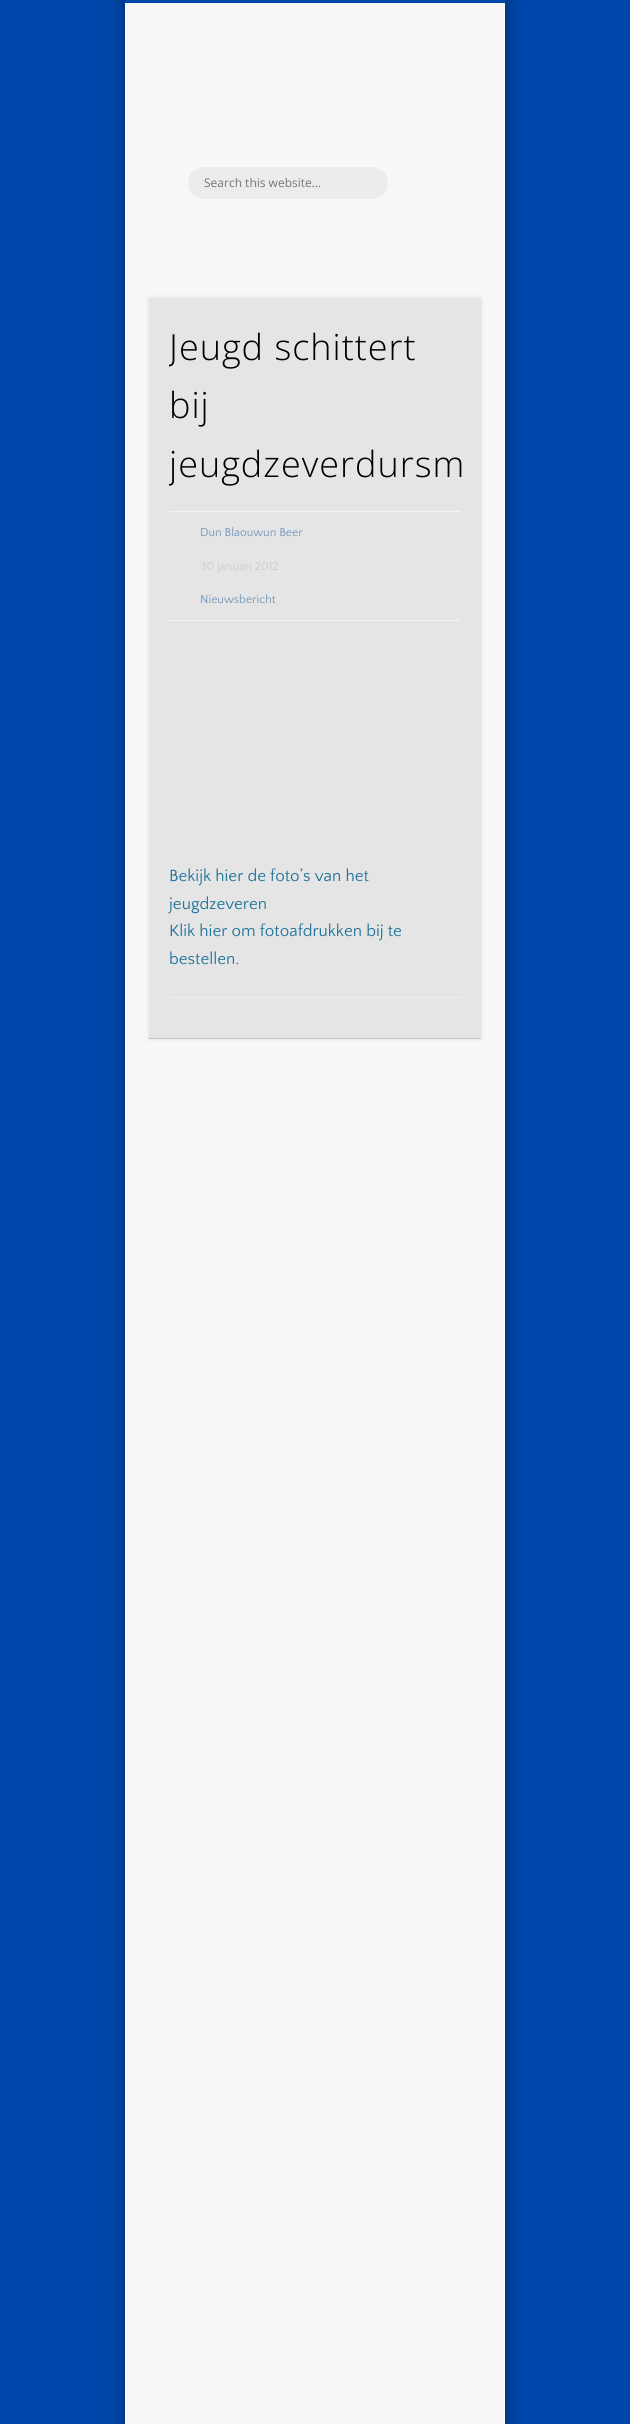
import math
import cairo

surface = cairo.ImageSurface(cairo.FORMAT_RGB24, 630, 2424)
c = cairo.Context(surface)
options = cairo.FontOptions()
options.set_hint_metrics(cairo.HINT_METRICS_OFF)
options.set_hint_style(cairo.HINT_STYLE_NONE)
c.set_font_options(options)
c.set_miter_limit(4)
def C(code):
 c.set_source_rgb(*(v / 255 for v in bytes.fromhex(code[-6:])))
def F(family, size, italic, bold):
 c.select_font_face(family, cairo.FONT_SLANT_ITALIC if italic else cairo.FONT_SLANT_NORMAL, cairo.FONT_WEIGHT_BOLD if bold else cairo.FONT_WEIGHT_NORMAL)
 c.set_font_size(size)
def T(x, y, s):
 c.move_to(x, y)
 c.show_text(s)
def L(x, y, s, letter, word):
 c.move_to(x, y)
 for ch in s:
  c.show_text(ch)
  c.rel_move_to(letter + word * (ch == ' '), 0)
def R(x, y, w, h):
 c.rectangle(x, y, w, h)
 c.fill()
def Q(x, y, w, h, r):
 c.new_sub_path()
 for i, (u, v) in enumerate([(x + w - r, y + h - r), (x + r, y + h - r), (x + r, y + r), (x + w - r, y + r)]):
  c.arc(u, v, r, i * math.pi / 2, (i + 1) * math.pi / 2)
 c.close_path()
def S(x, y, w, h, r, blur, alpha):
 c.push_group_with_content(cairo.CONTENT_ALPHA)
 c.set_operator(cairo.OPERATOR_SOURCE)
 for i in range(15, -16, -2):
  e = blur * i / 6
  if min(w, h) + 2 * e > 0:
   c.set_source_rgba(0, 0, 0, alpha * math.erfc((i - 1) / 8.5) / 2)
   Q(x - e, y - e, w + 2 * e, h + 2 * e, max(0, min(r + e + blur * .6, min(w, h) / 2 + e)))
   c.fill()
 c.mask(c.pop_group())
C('0047ab')
c.paint()
C('000000')
S(125,0,380,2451,0,9,.4)
C('f8f8f8')
R(125,3,380,2421)
C('0047ab')
R(125,0,380,3)
C('ececec')
Q(188,167,200,32,16)
c.fill()
F('Open Sans',12,0,0)
C('757575')
T(204,187,'Search this website…')
C('000000')
S(149,298,332,741,0,2.5,.1)
C('e5e5e5')
R(149,298,332,740)
C('c7c7c7')
R(149,1038,332,1)
c.save()
c.rectangle(169,318,292,175)
c.clip()
F('Open Sans Light',36,0,0)
C('000000')
L(169,360,'Jeugd schittert',1,0)
c.restore()
F('Open Sans Light',36,0,0)
C('000000')
L(169,418,'bij',1,0)
c.save()
c.rectangle(169,318,292,175)
c.clip()
L(169,477,'jeugdzeverdursm',1,0)
c.restore()
C('f4f4f4')
R(169,511,292,1)
R(169,620,292,1)
F('Quattrocento Sans',12,0,0)
C('7597b9')
T(200,536,'Dun Blaouwun Beer')
C('cccccc')
T(200,570,'30 januari 2012')
C('7597b9')
T(200,603,'Nieuwsbericht')
F('Quattrocento Sans',17,0,0)
C('21759b')
T(169,881,'Bekijk hier de foto’s van het')
T(169,909,'jeugdzeveren')
T(169,936,'Klik hier om fotoafdrukken bij te')
T(169,964,'bestellen.')
C('eeeeee')
R(169,997,292,1)
surface.write_to_png('o.png')
